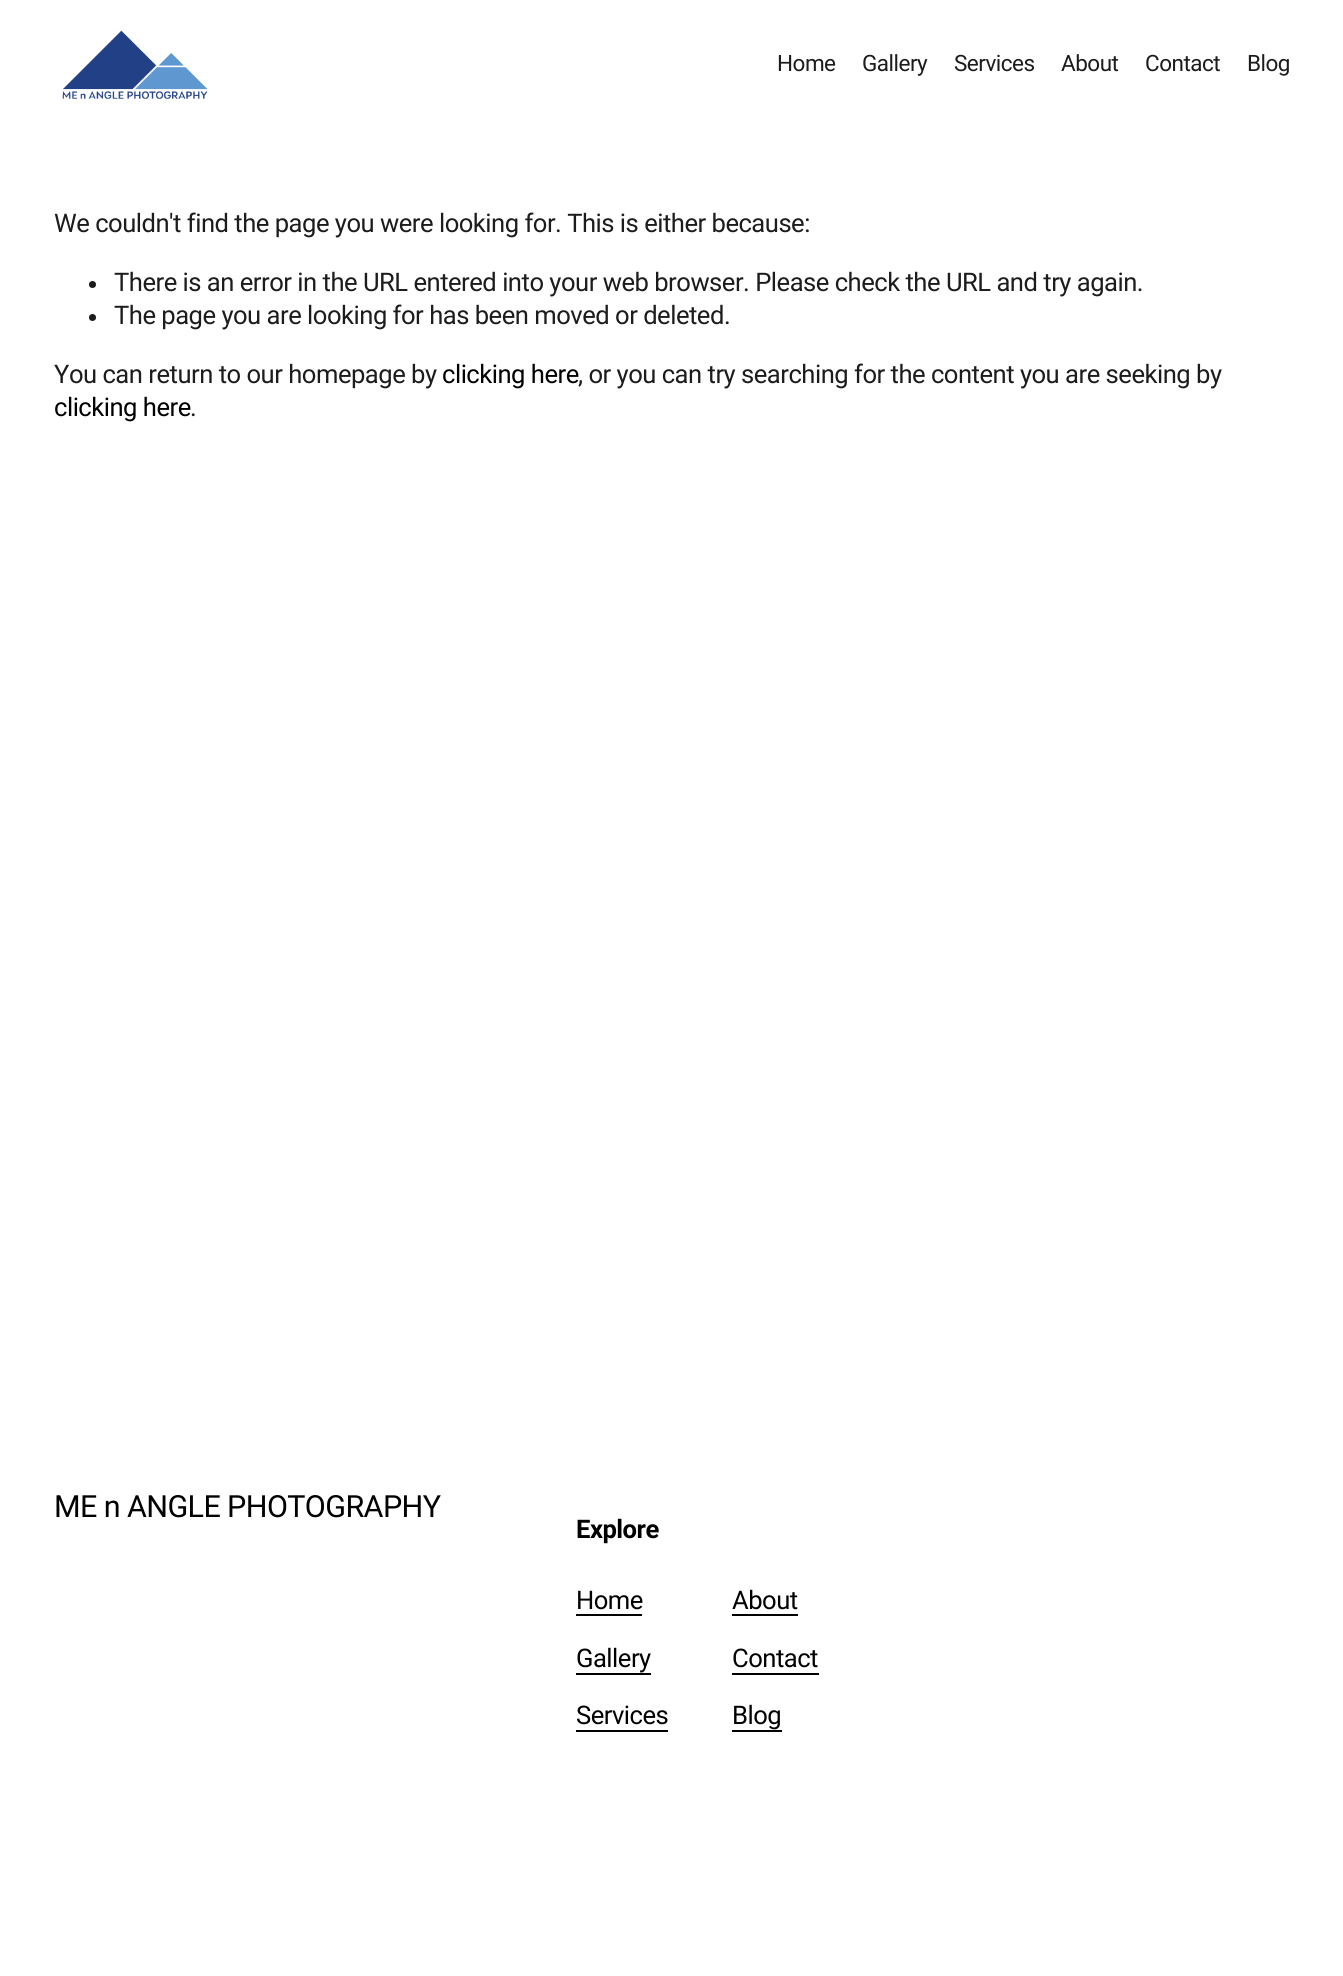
import math
import cairo

surface = cairo.ImageSurface(cairo.FORMAT_RGB24, 1343, 1976)
c = cairo.Context(surface)
options = cairo.FontOptions()
options.set_hint_metrics(cairo.HINT_METRICS_OFF)
options.set_hint_style(cairo.HINT_STYLE_NONE)
c.set_font_options(options)
c.set_miter_limit(4)
def C(code):
 c.set_source_rgb(*(v / 255 for v in bytes.fromhex(code[-6:])))
def F(family, size, italic, bold):
 c.select_font_face(family, cairo.FONT_SLANT_ITALIC if italic else cairo.FONT_SLANT_NORMAL, cairo.FONT_WEIGHT_BOLD if bold else cairo.FONT_WEIGHT_NORMAL)
 c.set_font_size(size)
def L(x, y, s, letter, word):
 c.move_to(x, y)
 for ch in s:
  c.show_text(ch)
  c.rel_move_to(letter + word * (ch == ' '), 0)
def R(x, y, w, h):
 c.rectangle(x, y, w, h)
 c.fill()
def I(path, x, y, w, h):
 c.save()
 c.set_source_surface(cairo.ImageSurface.create_from_png(path), x, y)
 c.rectangle(x, y, w, h)
 c.fill()
 c.restore()
C('ffffff')
c.paint()
I('1.png',62,30,146,69)
F('Roboto',22.5,0,0)
C('1c1c1c')
L(777,71,'Home',-.5,0)
L(862,71,'Gallery',-.5,0)
L(954,71,'Services',-.5,0)
L(1061,71,'About',-.5,0)
L(1145,71,'Contact',-.5,0)
L(1247,71,'Blog',-.5,0)
F('Roboto',25.6,0,0)
L(54,232,'We couldn\'t find the page you were looking for. This is either because:',-.5,0)
c.new_path()
c.arc(92.5,284.5,3.5,0,2 * math.pi)
c.fill()
L(114,291,'There is an error in the URL entered into your web browser. Please check the URL and try again.',-.5,0)
c.new_path()
c.arc(92.5,317.5,3.5,0,2 * math.pi)
c.fill()
L(114,324,'The page you are looking for has been moved or deleted.',-.5,0)
L(54,383,'You can return to our homepage by',-.5,0)
C('000000')
L(442,383,'clicking here',-.5,0)
C('1c1c1c')
L(578,383,', or you can try searching for the content you are seeking by',-.5,0)
C('000000')
L(54,416,'clicking here',-.5,0)
C('1c1c1c')
L(190,416,'.',-.5,0)
F('Roboto',30.5,0,0)
C('000000')
L(54,1517,'ME n ANGLE PHOTOGRAPHY',-.6,0)
F('Roboto',25.6,0,1)
L(576,1538,'Explore',-.5,0)
F('Roboto',25.6,0,0)
L(576,1609,'Home',-.5,0)
R(576,1614,66,2)
L(576,1667,'Gallery',-.5,0)
R(576,1673,75,2)
L(576,1724,'Services',-.5,0)
R(576,1730,92,2)
L(732,1609,'About',-.5,0)
R(732,1614,66,2)
L(732,1667,'Contact',-.5,0)
R(732,1673,87,2)
L(732,1724,'Blog',-.5,0)
R(732,1730,50,2)
surface.write_to_png('o.png')
